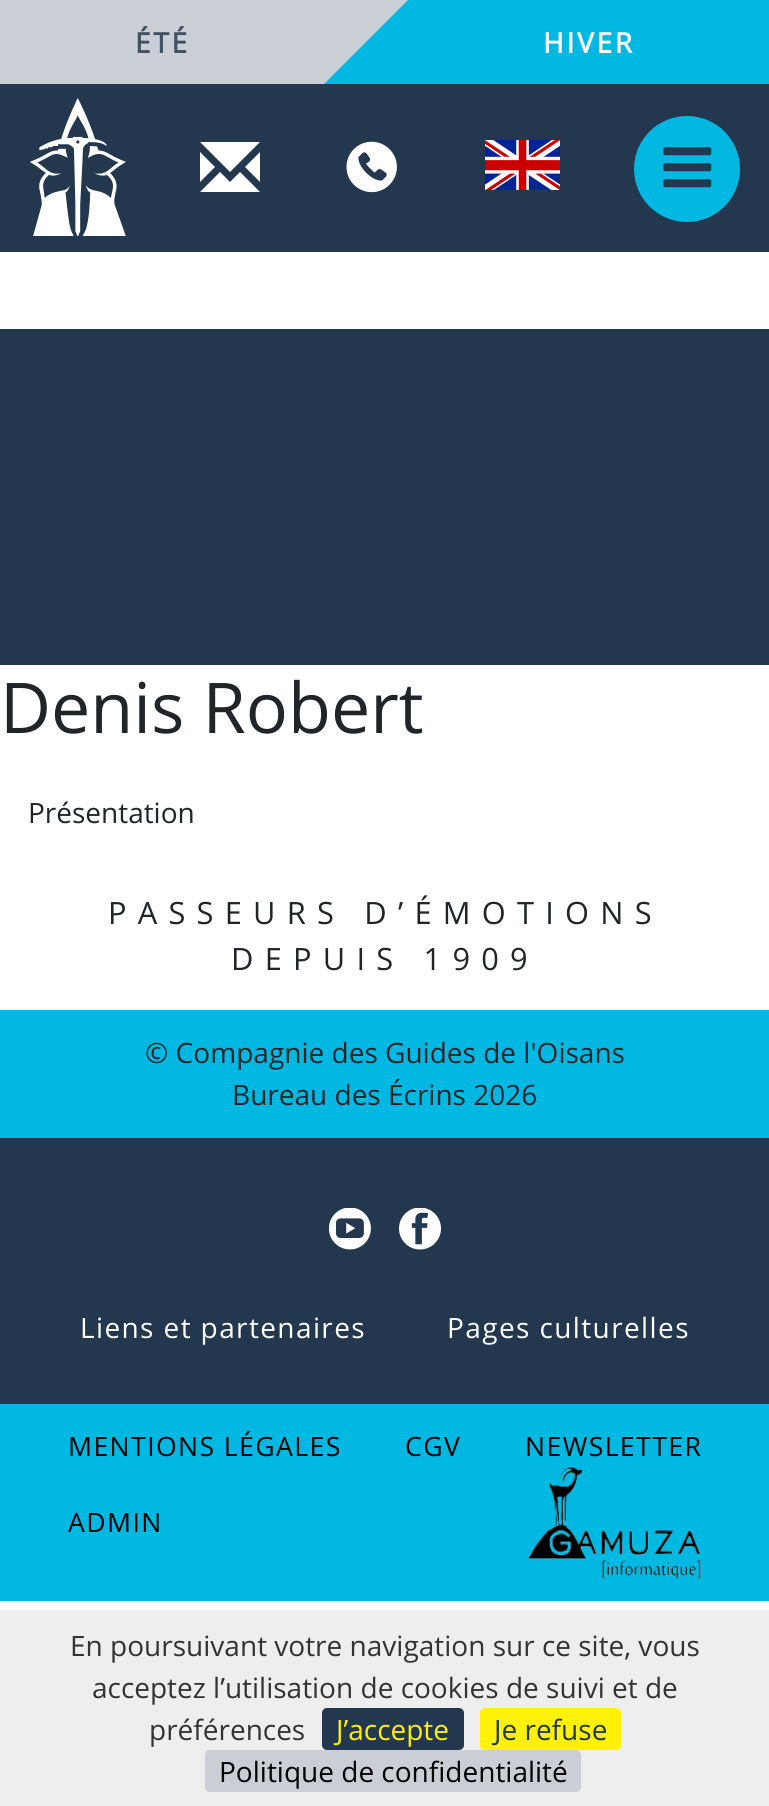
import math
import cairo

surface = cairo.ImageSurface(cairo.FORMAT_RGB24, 769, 1806)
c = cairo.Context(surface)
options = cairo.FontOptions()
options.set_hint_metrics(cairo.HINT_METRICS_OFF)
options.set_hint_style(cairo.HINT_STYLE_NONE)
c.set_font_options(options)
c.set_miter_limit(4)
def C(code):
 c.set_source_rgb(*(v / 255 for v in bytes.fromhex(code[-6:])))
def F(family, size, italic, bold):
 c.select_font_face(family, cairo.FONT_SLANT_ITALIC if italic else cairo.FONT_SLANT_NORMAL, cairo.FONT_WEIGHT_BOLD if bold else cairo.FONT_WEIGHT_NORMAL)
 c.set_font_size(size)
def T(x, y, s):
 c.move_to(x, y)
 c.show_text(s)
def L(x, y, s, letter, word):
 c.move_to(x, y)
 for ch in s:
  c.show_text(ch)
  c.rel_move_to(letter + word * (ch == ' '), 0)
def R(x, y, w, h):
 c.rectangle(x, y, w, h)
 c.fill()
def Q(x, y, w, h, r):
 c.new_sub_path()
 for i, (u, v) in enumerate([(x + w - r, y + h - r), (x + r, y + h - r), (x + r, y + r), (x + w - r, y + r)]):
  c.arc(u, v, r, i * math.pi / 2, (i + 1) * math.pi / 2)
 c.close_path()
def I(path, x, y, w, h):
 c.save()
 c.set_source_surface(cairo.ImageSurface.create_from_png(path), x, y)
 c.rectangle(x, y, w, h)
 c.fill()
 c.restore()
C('ffffff')
c.paint()
C('cacfd5')
R(0,0,408,84)
F('Open Sans',28,0,1)
C('415162')
L(135,53,'ÉTÉ',2.75,0)
C('00b8e1')
c.new_path()
c.move_to(408,84)
c.line_to(324,84)
c.line_to(408,0)
c.close_path()
c.fill()
R(408,0,361,84)
C('ffffff')
L(543,53,'HIVER',2.75,0)
C('23384f')
R(0,84,769,168)
I('1.png',30,98,96,138)
C('ffffff')
c.new_path()
c.move_to(230,172)
c.line_to(200,142)
c.line_to(260,142)
c.close_path()
c.move_to(200,152)
c.line_to(200,182)
c.line_to(215,167)
c.close_path()
c.move_to(230,182)
c.line_to(220,172)
c.line_to(200,192)
c.line_to(260,192)
c.line_to(240,172)
c.close_path()
c.move_to(245,167)
c.line_to(260,182)
c.line_to(260,152)
c.close_path()
c.fill()
I('2.png',346,141,51,52)
I('3.png',485,140,75,50)
C('00b8e1')
c.arc(687,169,53,0,2 * math.pi)
c.fill()
I('4.png',663,147,49,41)
C('23384f')
R(0,329,769,336)
F('Open Sans',70,0,0)
C('212529')
T(0,733,'Denis Robert')
F('Open Sans',28,0,0)
T(28,823,'Présentation')
F('Open Sans',30.75,0,0)
L(108,924,'PASSEURS D’ÉMOTIONS',11.25,0)
L(231,970,'DEPUIS 1909',11.25,0)
C('00b8e1')
R(0,1010,769,128)
F('Open Sans',28,0,0)
C('212529')
T(145,1063,'© Compagnie des Guides de l\'Oisans')
T(232,1105,'Bureau des Écrins 2026')
C('23384f')
R(0,1138,769,266)
I('5.png',329,1208,42,42)
I('6.png',399,1208,42,42)
C('ffffff')
L(80,1338,'Liens et partenaires',1.4,0)
L(447,1338,'Pages culturelles',1.4,0)
C('00b8e1')
R(0,1404,769,197)
F('Open Sans',26.6,0,0)
C('000000')
L(68,1456,'MENTIONS LÉGALES',1.4,0)
L(405,1456,'CGV',1.4,0)
L(525,1456,'NEWSLETTER',1.4,0)
L(68,1532,'ADMIN',1.4,0)
I('7.png',527,1466,174,113)
C('eeeeee')
R(0,1610,769,196)
F('Open Sans',28,0,0)
C('333333')
T(70,1656,'En poursuivant votre navigation sur ce site, vous')
T(92,1698,'acceptez l’utilisation de cookies de suivi et de')
T(149,1740,'préférences')
C('23384f')
Q(322,1708,142,42,5)
c.fill()
C('fff107')
T(336,1740,'J’accepte')
Q(480,1708,141,42,5)
c.fill()
C('23384f')
T(494,1740,'Je refuse')
C('cacfd5')
Q(205,1750,376,42,5)
c.fill()
C('000000')
T(219,1782,'Politique de confidentialité')
surface.write_to_png('o.png')
